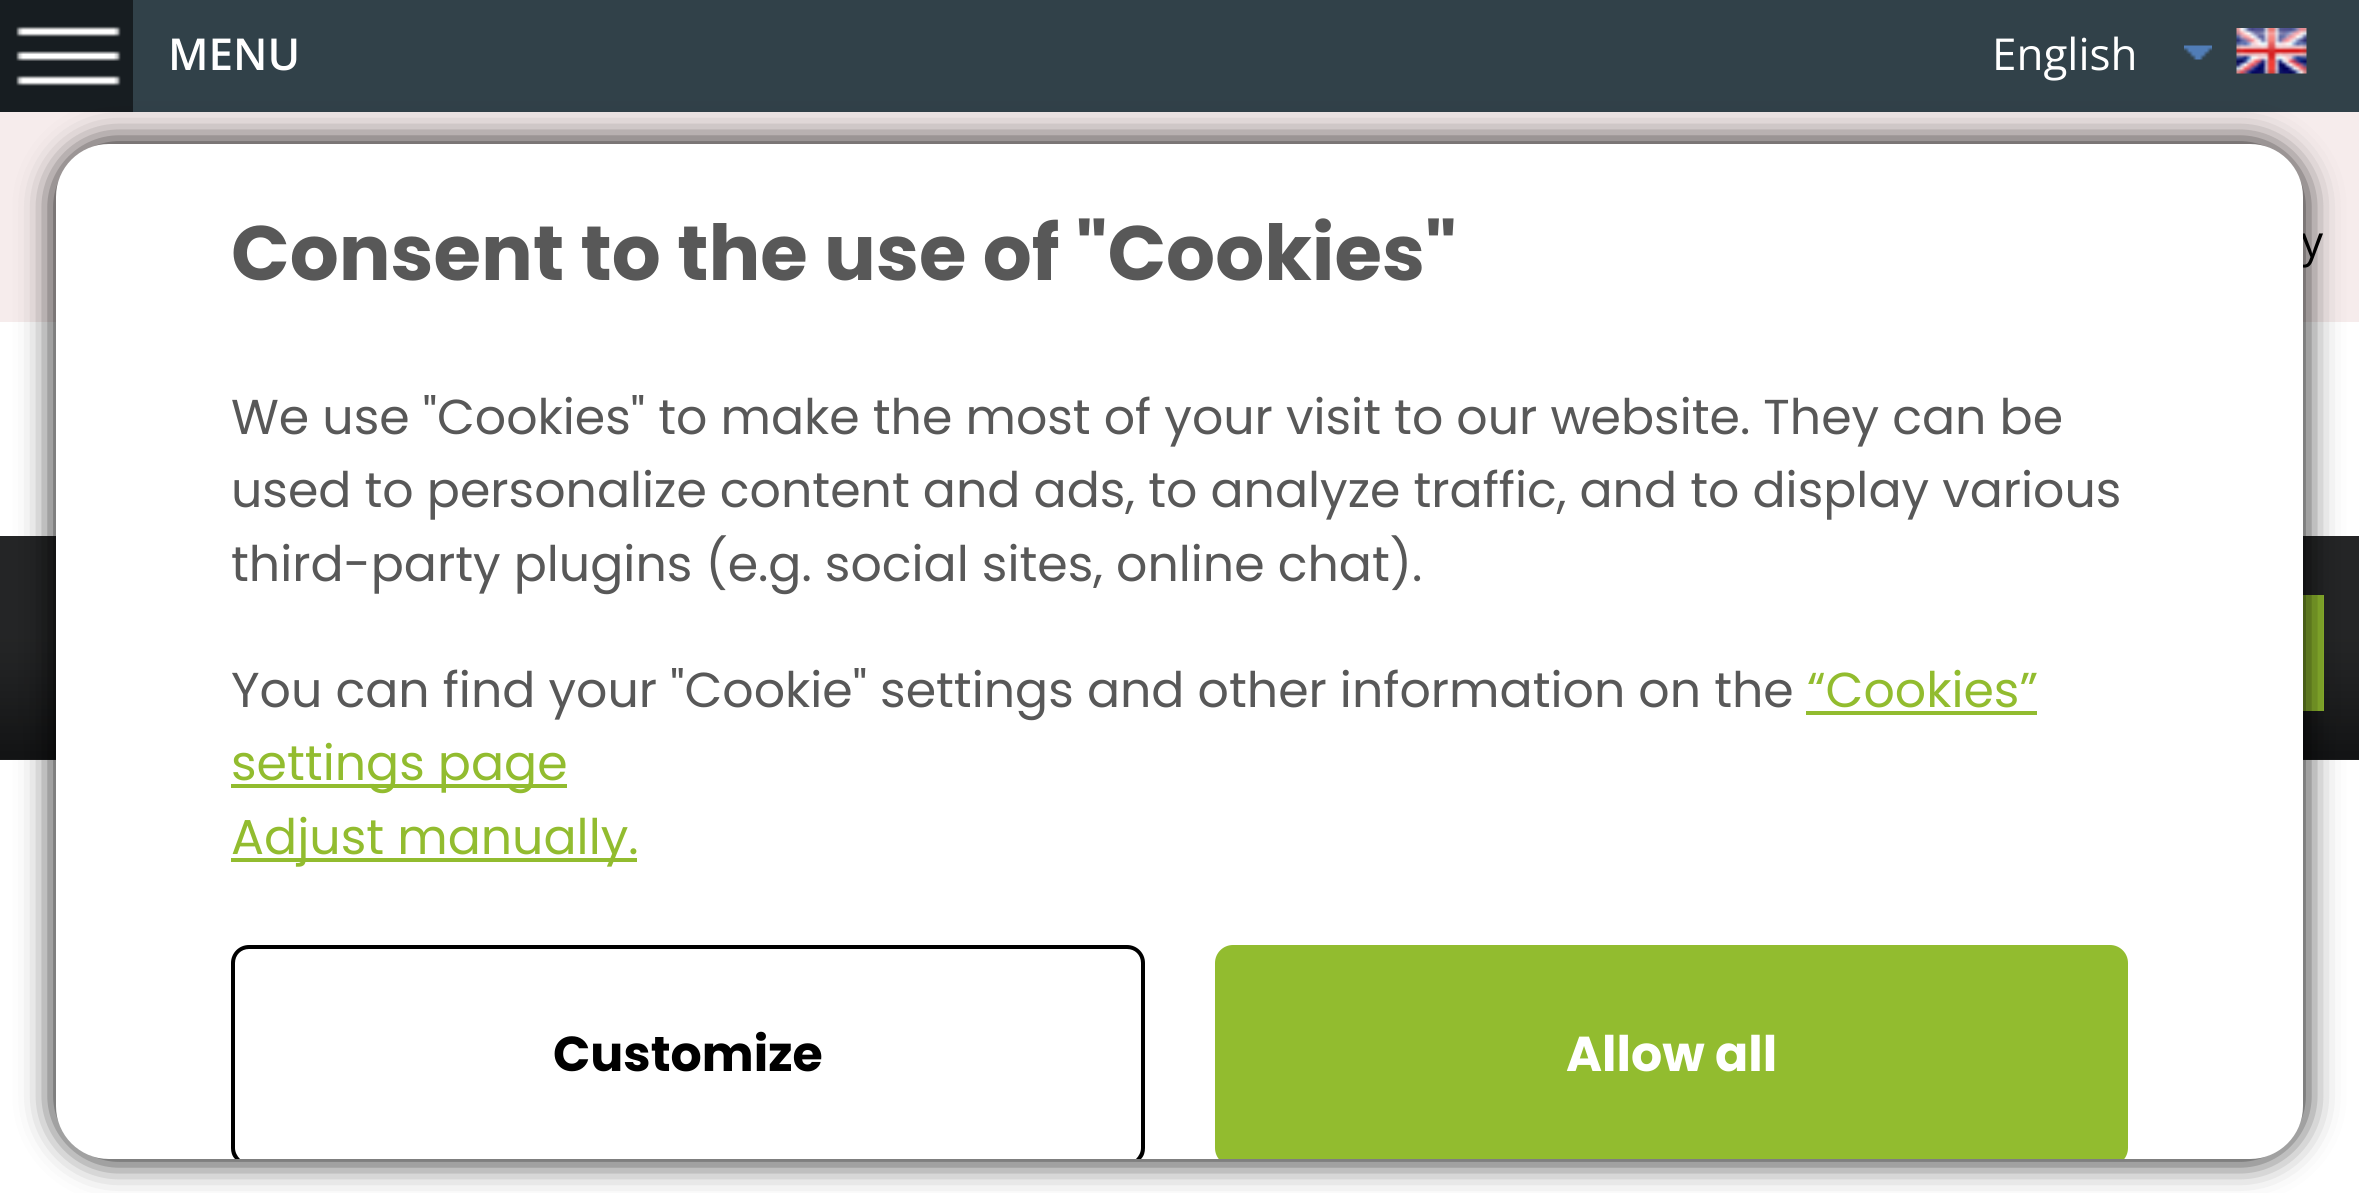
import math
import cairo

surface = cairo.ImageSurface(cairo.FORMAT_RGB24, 2359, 1193)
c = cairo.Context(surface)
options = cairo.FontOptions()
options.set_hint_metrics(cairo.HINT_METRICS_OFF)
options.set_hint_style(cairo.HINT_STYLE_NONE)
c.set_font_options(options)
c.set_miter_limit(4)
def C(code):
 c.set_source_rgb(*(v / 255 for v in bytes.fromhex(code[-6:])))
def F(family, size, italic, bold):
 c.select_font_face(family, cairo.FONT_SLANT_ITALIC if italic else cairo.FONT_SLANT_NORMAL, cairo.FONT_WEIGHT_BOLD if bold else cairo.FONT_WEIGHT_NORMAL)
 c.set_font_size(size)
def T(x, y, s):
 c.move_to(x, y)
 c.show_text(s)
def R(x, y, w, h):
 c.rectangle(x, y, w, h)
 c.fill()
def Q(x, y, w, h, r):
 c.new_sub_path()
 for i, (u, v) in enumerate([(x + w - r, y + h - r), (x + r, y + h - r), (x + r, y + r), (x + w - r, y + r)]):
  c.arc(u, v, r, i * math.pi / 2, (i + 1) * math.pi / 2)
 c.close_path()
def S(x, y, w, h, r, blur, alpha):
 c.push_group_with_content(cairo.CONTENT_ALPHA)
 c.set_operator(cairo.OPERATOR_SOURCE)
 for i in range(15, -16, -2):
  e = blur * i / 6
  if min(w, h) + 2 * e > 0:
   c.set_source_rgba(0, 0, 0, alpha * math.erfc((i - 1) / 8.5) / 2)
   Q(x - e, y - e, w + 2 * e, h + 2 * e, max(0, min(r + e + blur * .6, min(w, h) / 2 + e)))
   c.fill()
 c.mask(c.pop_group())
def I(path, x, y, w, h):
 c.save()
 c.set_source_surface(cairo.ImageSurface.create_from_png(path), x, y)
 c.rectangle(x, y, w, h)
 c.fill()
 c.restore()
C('314149')
c.paint()
I('1.png',0,0,133,112)
F('Open Sans SemiBold',44,0,0)
C('ffffff')
T(168,70,'MENU')
R(0,322,2359,214)
I('2.png',2184,45,28,15)
I('3.png',2236,28,71,46)
F('Open Sans',44,0,0)
T(1992,70,'English')
C('f6ecec')
R(0,112,2359,210)
C('000000')
T(2301,257,'y')
C('242526')
R(0,759,2359,1)
I('4.png',0,536,2359,224)
C('92bc2f')
R(2303,595,21,116)
C('ffffff')
R(0,760,2359,433)
C('000000')
S(56,144,2247,1015,53,17.5,1)
C('ffffff')
Q(56,144,2247,1015,53)
c.fill()
F('Poppins',77,0,1)
C('585858')
T(231,280,'Consent to the use of "Cookies"')
F('Poppins',49,0,0)
T(231,434,'We use "Cookies" to make the most of your visit to our website. They can be')
T(231,507,'used to personalize content and ads, to analyze traffic, and to display various')
T(231,581,'third-party plugins (e.g. social sites, online chat).')
T(231,707,'You can find your "Cookie" settings and other information on the')
C('92bc2f')
T(1807,707,'“Cookies”')
R(1806,711,231,4)
R(231,784,336,4)
T(231,780,'settings page')
R(231,858,406,4)
T(231,854,'Adjust manually.')
C('000000')
c.new_path()
c.move_to(249,945)
c.curve_to(239,945,231,953,231,963)
c.line_to(231,1148)
c.curve_to(231,1152,232,1156,235,1159)
c.line_to(240,1159)
c.curve_to(237,1156,235,1152,235,1148)
c.line_to(235,963)
c.curve_to(235,955,241,949,249,949)
c.line_to(1127,949)
c.curve_to(1135,949,1141,955,1141,963)
c.line_to(1141,1148)
c.curve_to(1141,1152,1139,1156,1136,1159)
c.line_to(1141,1159)
c.curve_to(1144,1156,1145,1152,1145,1148)
c.line_to(1145,963)
c.curve_to(1145,953,1137,945,1127,945)
c.close_path()
c.fill()
F('Poppins',49,0,1)
T(553,1071,'Customize')
c.save()
Q(56,144,2247,1015,53)
c.clip()
C('92bc2f')
Q(1215,945,913,221,18)
c.fill()
c.restore()
C('ffffff')
T(1566,1071,'Allow all')
surface.write_to_png('o.png')
